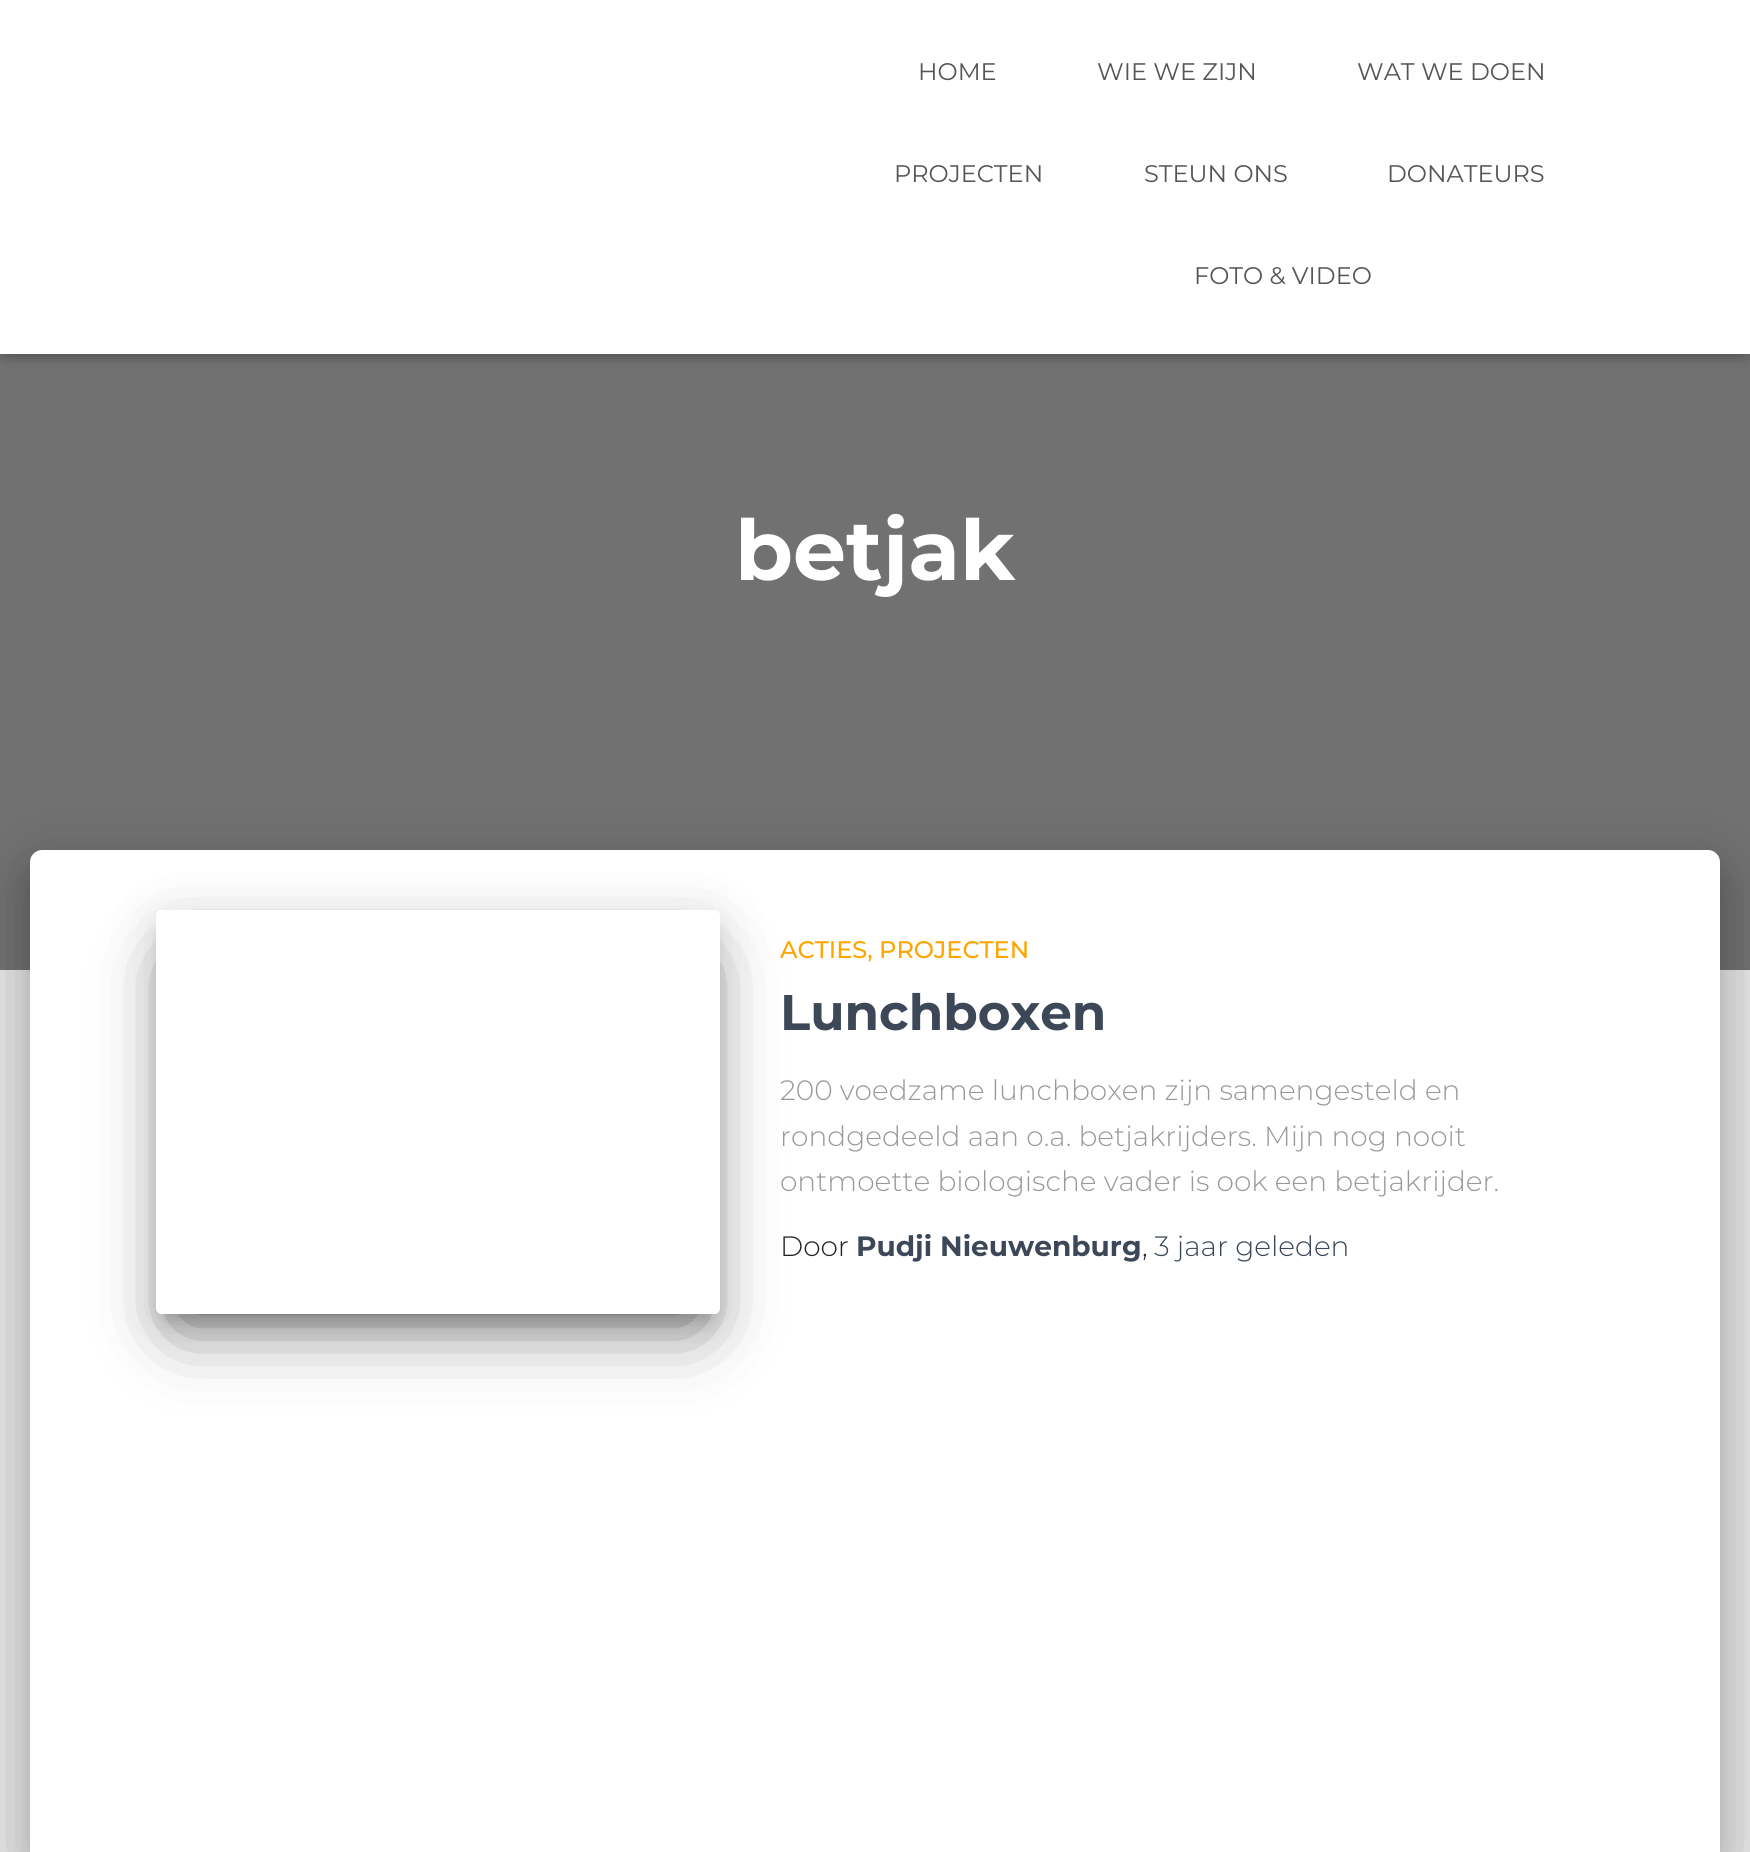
import math
import cairo

surface = cairo.ImageSurface(cairo.FORMAT_RGB24, 1750, 1852)
c = cairo.Context(surface)
options = cairo.FontOptions()
options.set_hint_metrics(cairo.HINT_METRICS_OFF)
options.set_hint_style(cairo.HINT_STYLE_NONE)
c.set_font_options(options)
c.set_miter_limit(4)
def C(code):
 c.set_source_rgb(*(v / 255 for v in bytes.fromhex(code[-6:])))
def F(family, size, italic, bold):
 c.select_font_face(family, cairo.FONT_SLANT_ITALIC if italic else cairo.FONT_SLANT_NORMAL, cairo.FONT_WEIGHT_BOLD if bold else cairo.FONT_WEIGHT_NORMAL)
 c.set_font_size(size)
def T(x, y, s):
 c.move_to(x, y)
 c.show_text(s)
def R(x, y, w, h):
 c.rectangle(x, y, w, h)
 c.fill()
def Q(x, y, w, h, r):
 c.new_sub_path()
 for i, (u, v) in enumerate([(x + w - r, y + h - r), (x + r, y + h - r), (x + r, y + r), (x + w - r, y + r)]):
  c.arc(u, v, r, i * math.pi / 2, (i + 1) * math.pi / 2)
 c.close_path()
def S(x, y, w, h, r, blur, alpha):
 c.push_group_with_content(cairo.CONTENT_ALPHA)
 c.set_operator(cairo.OPERATOR_SOURCE)
 for i in range(15, -16, -2):
  e = blur * i / 6
  if min(w, h) + 2 * e > 0:
   c.set_source_rgba(0, 0, 0, alpha * math.erfc((i - 1) / 8.5) / 2)
   Q(x - e, y - e, w + 2 * e, h + 2 * e, max(0, min(r + e + blur * .6, min(w, h) / 2 + e)))
   c.fill()
 c.mask(c.pop_group())
C('e5e5e5')
c.paint()
C('717171')
R(0,354,1750,616)
C('000000')
S(4,12,1742,346,0,5,.1)
S(0,2,1750,354,0,10,.12)
S(12,14,1726,330,0,10,.42)
C('ffffff')
R(0,0,1750,354)
F('Montserrat',24,0,0)
C('555555')
T(918,80,'HOME')
T(1097,80,'WIE WE ZIJN')
T(1357,80,'WAT WE DOEN')
T(894,182,'PROJECTEN')
T(1144,182,'STEUN ONS')
T(1387,182,'DONATEURS')
T(1194,284,'FOTO & VIDEO')
F('Montserrat',84,0,1)
C('ffffff')
T(735,580,'betjak')
C('000000')
S(40,876,1670,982,2,10,.2)
S(20,852,1710,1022,22,30,.12)
S(26,878,1698,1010,16,24,.14)
C('ffffff')
c.new_path()
c.move_to(42,850)
c.line_to(1708,850)
c.curve_to(1714.5,850,1720,855.5,1720,862)
c.line_to(1720,1852)
c.line_to(30,1852)
c.line_to(30,862)
c.curve_to(30,855.5,35.5,850,42,850)
c.close_path()
c.fill()
c.save()
c.set_fill_rule(cairo.FILL_RULE_EVEN_ODD)
c.new_path()
c.move_to(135,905)
c.line_to(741,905)
c.line_to(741,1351)
c.line_to(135,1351)
c.close_path()
c.move_to(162,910)
c.line_to(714,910)
c.curve_to(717.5,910,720,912.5,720,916)
c.line_to(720,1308)
c.curve_to(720,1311.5,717.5,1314,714,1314)
c.line_to(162,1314)
c.curve_to(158.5,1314,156,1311.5,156,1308)
c.line_to(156,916)
c.curve_to(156,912.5,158.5,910,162,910)
c.close_path()
c.clip()
C('000000')
S(166,936,544,384,0,10,.2)
c.restore()
c.save()
c.set_fill_rule(cairo.FILL_RULE_EVEN_ODD)
c.new_path()
c.move_to(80,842)
c.line_to(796,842)
c.line_to(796,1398)
c.line_to(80,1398)
c.close_path()
c.move_to(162,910)
c.line_to(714,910)
c.curve_to(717.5,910,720,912.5,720,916)
c.line_to(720,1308)
c.curve_to(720,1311.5,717.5,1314,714,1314)
c.line_to(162,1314)
c.curve_to(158.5,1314,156,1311.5,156,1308)
c.line_to(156,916)
c.curve_to(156,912.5,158.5,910,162,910)
c.close_path()
c.clip()
C('000000')
S(156,918,564,404,6,25,.12)
c.restore()
c.save()
c.set_fill_rule(cairo.FILL_RULE_EVEN_ODD)
c.new_path()
c.move_to(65,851)
c.line_to(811,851)
c.line_to(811,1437)
c.line_to(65,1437)
c.close_path()
c.move_to(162,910)
c.line_to(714,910)
c.curve_to(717.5,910,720,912.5,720,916)
c.line_to(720,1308)
c.curve_to(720,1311.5,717.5,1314,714,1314)
c.line_to(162,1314)
c.curve_to(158.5,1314,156,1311.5,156,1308)
c.line_to(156,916)
c.curve_to(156,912.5,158.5,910,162,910)
c.close_path()
c.clip()
C('000000')
S(180,966,516,356,0,38,.56)
c.restore()
F('Montserrat Medium',24,0,0)
C('ffa500')
T(780,958,'ACTIES, PROJECTEN')
F('Montserrat',50,0,1)
C('3c4858')
T(780,1030,'Lunchboxen')
F('Montserrat Light',28,0,0)
C('999999')
T(780,1100,'200 voedzame lunchboxen zijn samengesteld en')
T(780,1146,'rondgedeeld aan o.a. betjakrijders. Mijn nog nooit')
T(780,1191,'ontmoette biologische vader is ook een betjakrijder.')
C('212121')
T(780,1256,'Door')
F('Montserrat',28,0,1)
C('3c4858')
T(856,1256,'Pudji Nieuwenburg')
F('Montserrat Light',28,0,0)
C('212121')
T(1142,1256,',')
C('3c4858')
T(1154,1256,'3 jaar geleden')
surface.write_to_png('o.png')
